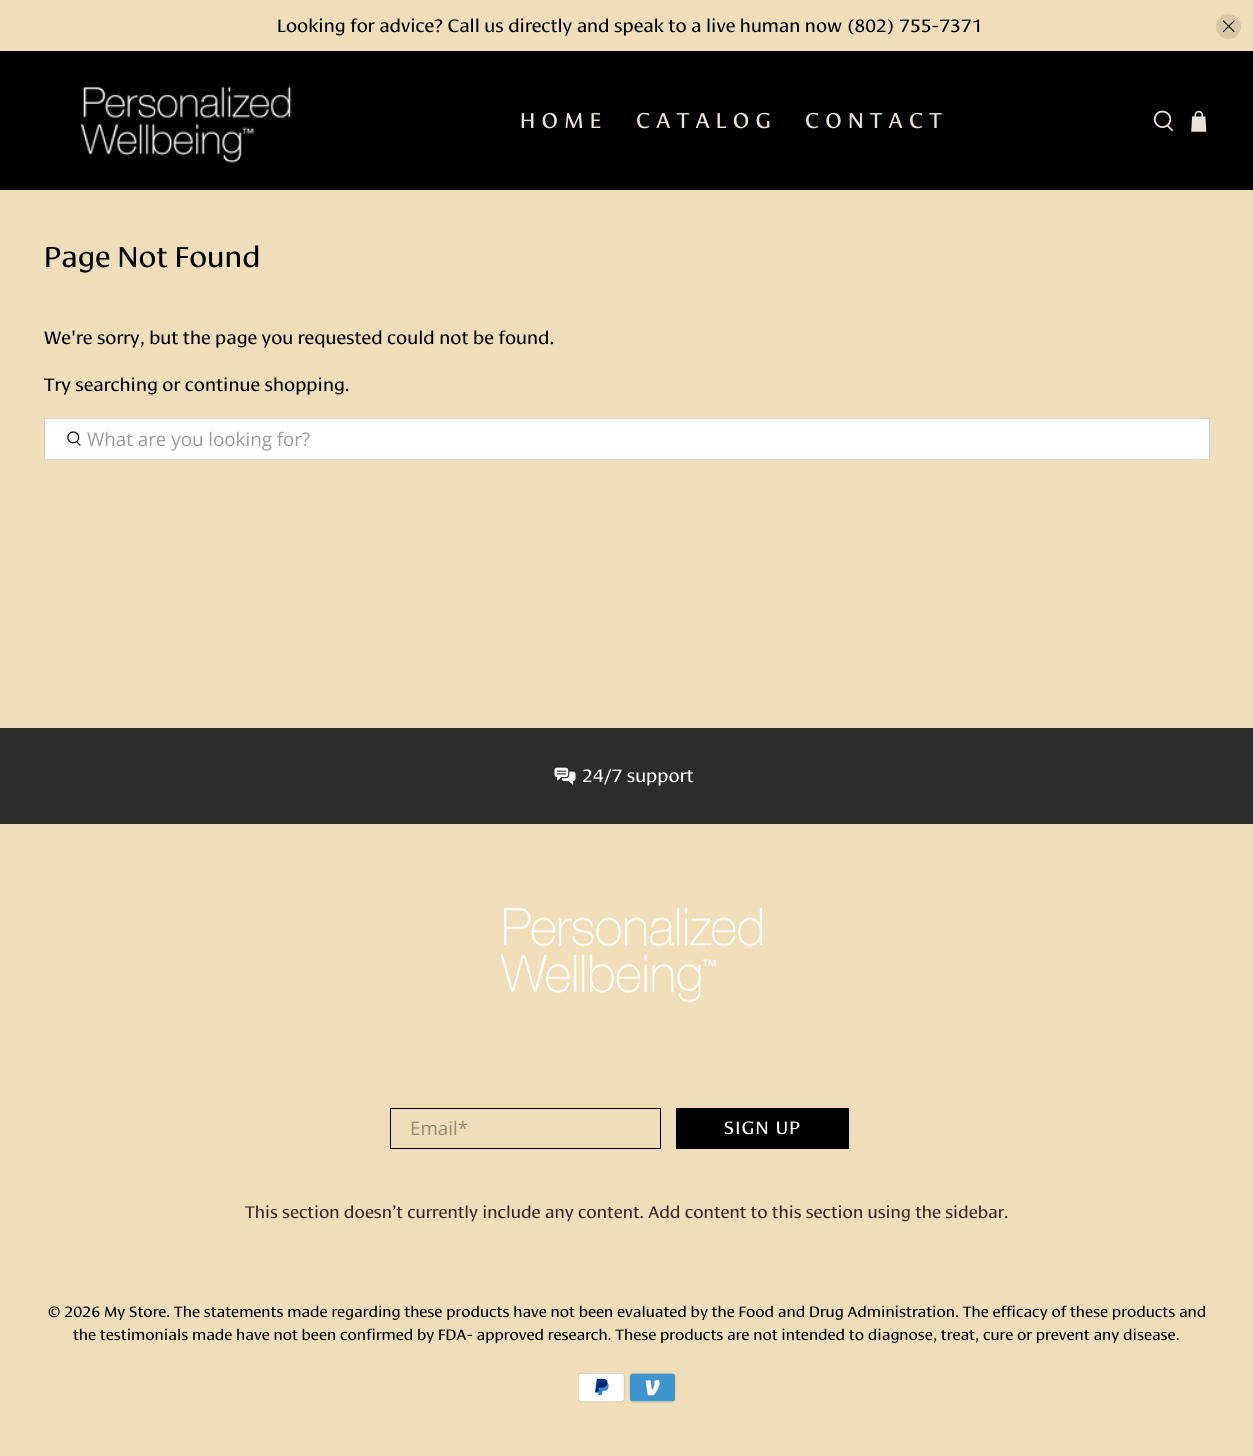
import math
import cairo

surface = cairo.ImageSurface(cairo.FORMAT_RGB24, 1253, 1456)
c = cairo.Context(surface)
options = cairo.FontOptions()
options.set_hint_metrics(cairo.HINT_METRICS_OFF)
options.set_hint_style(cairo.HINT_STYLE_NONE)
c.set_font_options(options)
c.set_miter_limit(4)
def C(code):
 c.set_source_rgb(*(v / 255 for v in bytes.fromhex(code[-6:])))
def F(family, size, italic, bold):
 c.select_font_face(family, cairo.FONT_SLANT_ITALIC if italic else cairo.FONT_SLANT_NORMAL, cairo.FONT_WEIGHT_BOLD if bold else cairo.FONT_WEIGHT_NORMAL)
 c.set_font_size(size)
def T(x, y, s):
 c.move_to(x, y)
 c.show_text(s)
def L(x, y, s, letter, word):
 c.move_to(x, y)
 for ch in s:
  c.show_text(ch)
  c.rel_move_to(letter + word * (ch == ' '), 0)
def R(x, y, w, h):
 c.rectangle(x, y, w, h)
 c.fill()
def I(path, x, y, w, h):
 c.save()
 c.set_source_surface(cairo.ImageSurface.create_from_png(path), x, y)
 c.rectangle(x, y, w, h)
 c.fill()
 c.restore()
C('f0deba')
c.paint()
F('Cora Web',18.75,0,0)
C('000000')
T(277,32,'Looking for advice? Call us directly and speak to a live human now (802) 755-7371')
C('d8c8a7')
c.new_path()
c.arc(1228.5,26.5,12.5,0,2 * math.pi)
c.fill()
I('1.png',1223,20,12,13)
C('000000')
R(0,51,1253,139)
I('2.png',80,86,212,77)
F('Cora Web',22.5,0,0)
C('ede2d6')
L(520,128,'HOME',6.25,0)
L(636,128,'CATALOG',6.25,0)
L(805,128,'CONTACT',6.25,0)
I('3.png',1153,110,21,22)
I('4.png',1191,110,16,22)
F('Cora Web',30,0,0)
C('000000')
T(44,267,'Page Not Found')
F('Cora Web',18.75,0,0)
T(44,344,'We\'re sorry, but the page you requested could not be found.')
T(44,391,'Try searching or continue shopping.')
C('ffffff')
c.rectangle(44.5,418.5,1165,41)
c.fill_preserve()
C('d3d3d3')
c.set_line_width(1)
c.stroke()
I('5.png',67,431,14,15)
F('Open Sans',18.75,0,0)
C('9b9b9b')
T(87,446,'What are you looking for?')
C('2e2c28')
R(0,728,1253,96)
I('6.png',554,767,22,18)
F('Cora Web',18.75,0,0)
C('ffffff')
T(582,782,'24/7 support')
I('7.png',500,907,263,96)
c.rectangle(390.5,1108.5,270,40)
C('000000')
c.stroke()
F('Open Sans',18.75,0,0)
C('938a78')
T(410,1135,'Email*')
C('000000')
R(676,1108,173,41)
F('Cora Web',18.75,0,0)
C('ffffff')
L(724,1134,'SIGN UP',1.25,0)
F('Cora Web',17.5,0,0)
C('3e2626')
T(245,1218,'This section doesn’t currently include any content. Add content to this section using the sidebar.')
F('Cora Web',15.62,0,0)
C('000000')
T(48,1317,'© 2026 My Store. The statements made regarding these products have not been evaluated by the Food and Drug Administration. The efficacy of these products and')
T(73,1340,'the testimonials made have not been confirmed by FDA- approved research. These products are not intended to diagnose, treat, cure or prevent any disease.')
I('8.png',578,1373,47,30)
I('9.png',629,1373,47,30)
surface.write_to_png('o.png')
